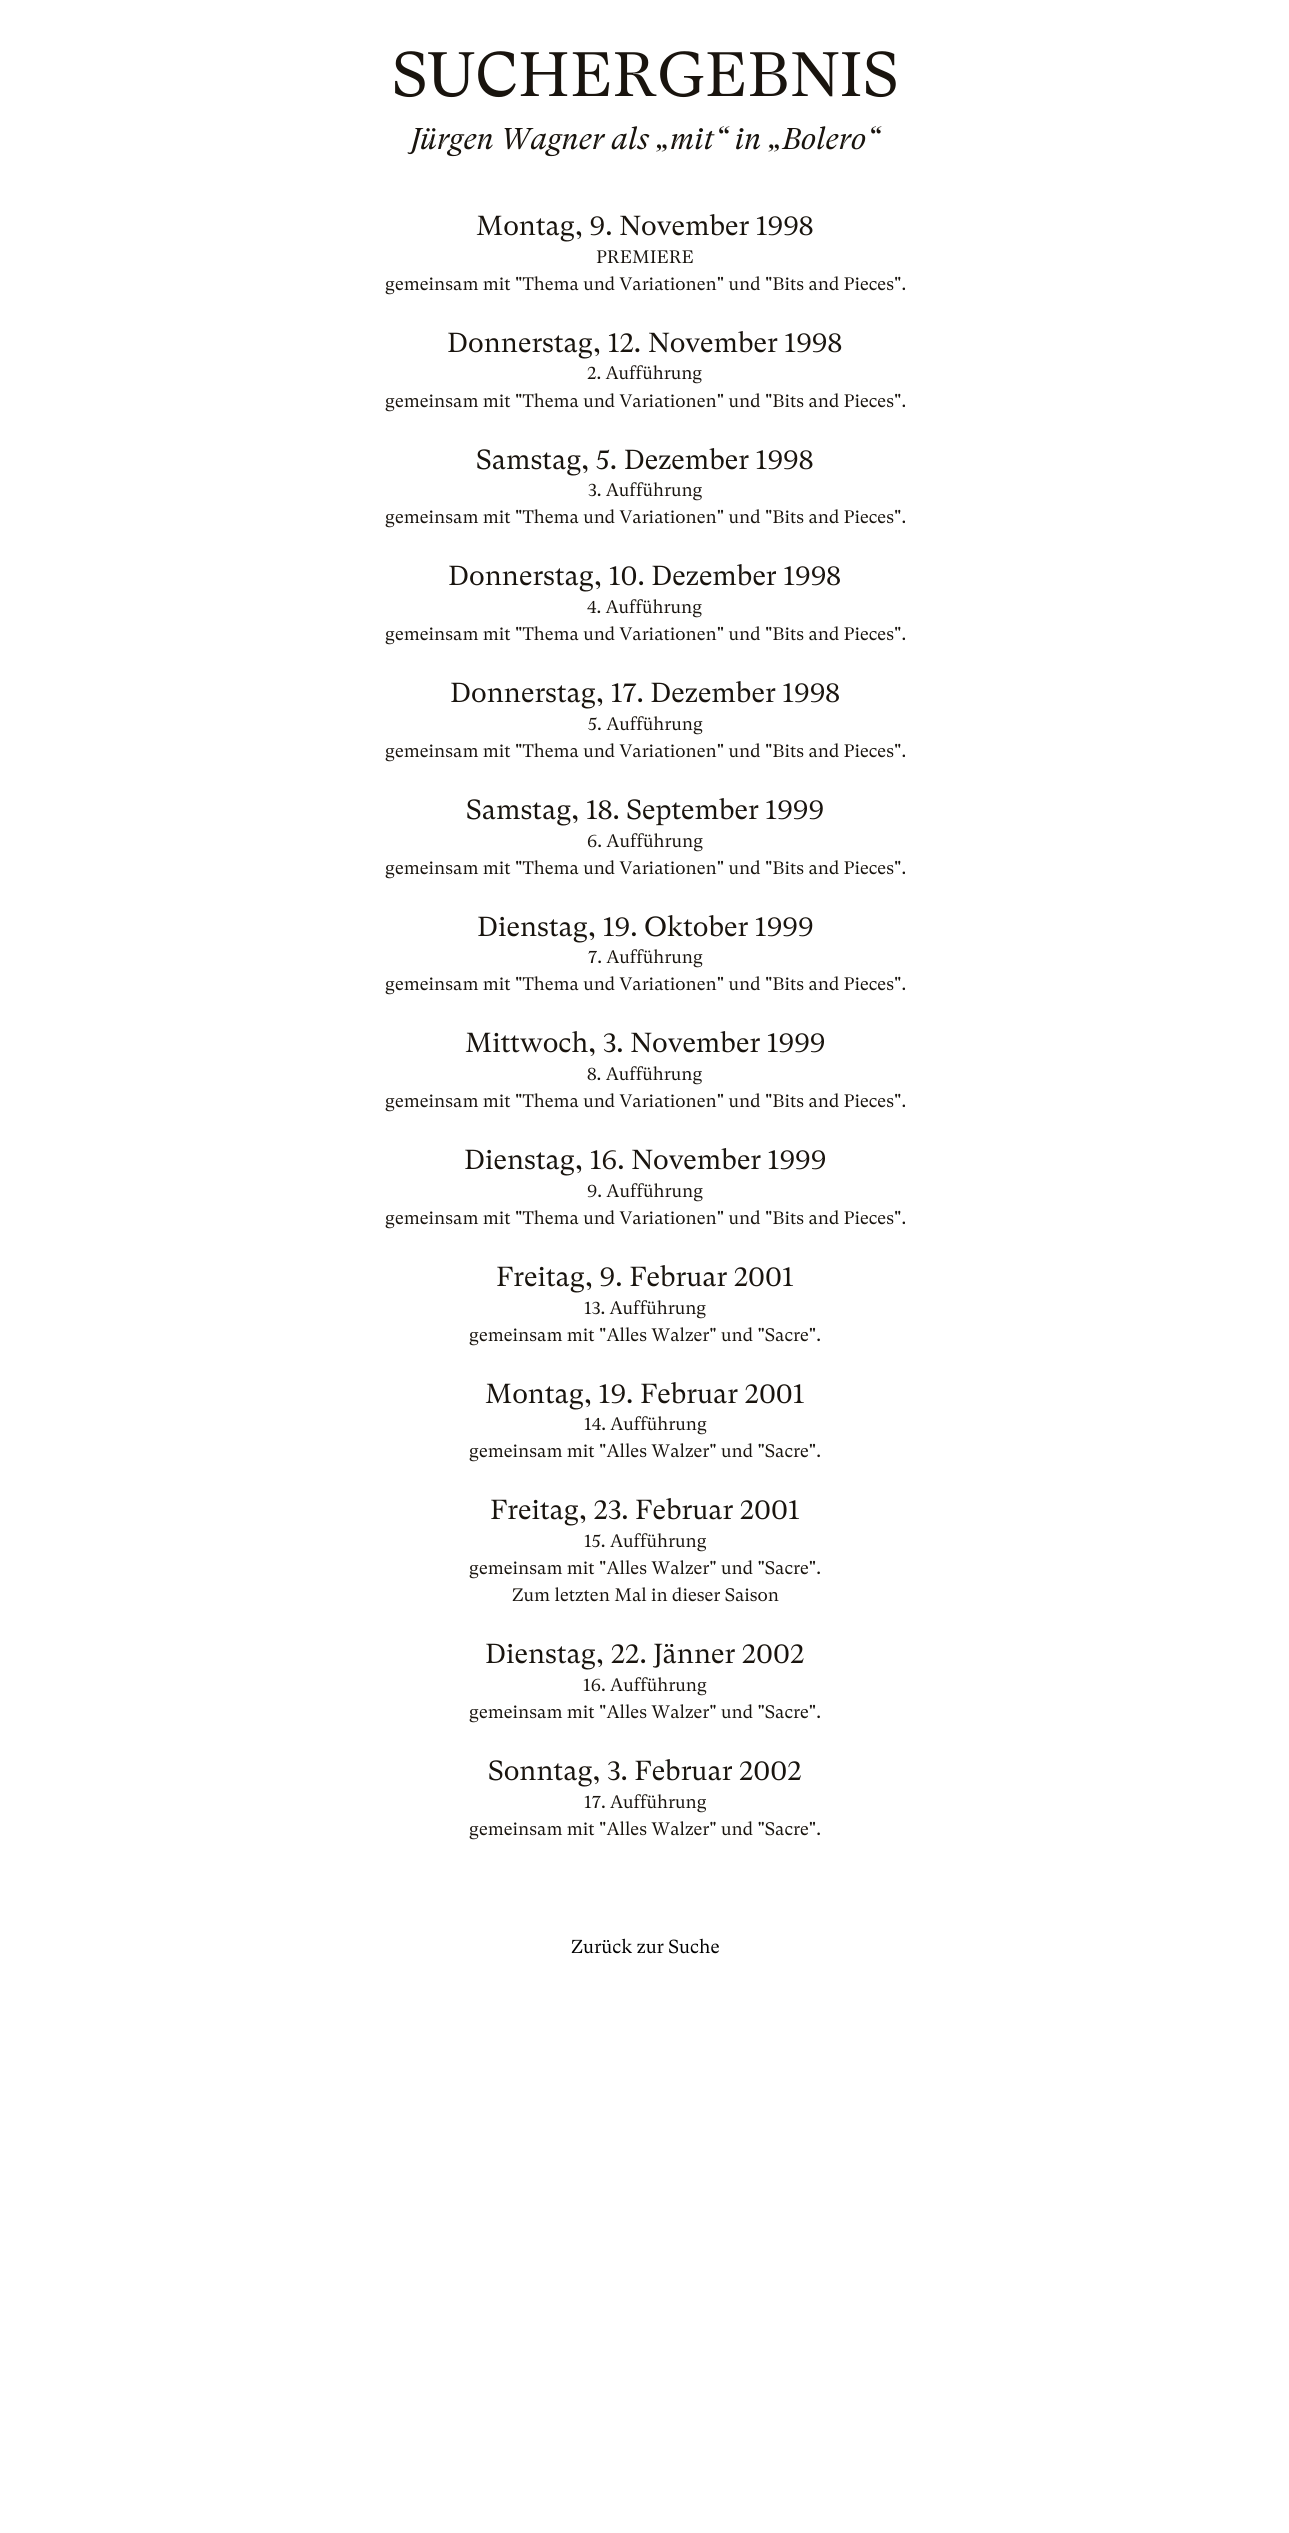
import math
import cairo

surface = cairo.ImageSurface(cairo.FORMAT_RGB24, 1289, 2533)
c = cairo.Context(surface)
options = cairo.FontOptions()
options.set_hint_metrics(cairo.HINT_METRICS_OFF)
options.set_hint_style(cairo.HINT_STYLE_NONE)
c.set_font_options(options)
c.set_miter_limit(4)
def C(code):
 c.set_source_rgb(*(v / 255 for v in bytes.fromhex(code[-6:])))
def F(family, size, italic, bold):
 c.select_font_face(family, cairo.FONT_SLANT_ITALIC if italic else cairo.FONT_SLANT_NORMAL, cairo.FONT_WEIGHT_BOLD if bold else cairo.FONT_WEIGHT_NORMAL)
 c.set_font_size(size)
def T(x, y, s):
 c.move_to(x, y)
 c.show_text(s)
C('ffffff')
c.paint()
F('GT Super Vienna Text',62.5,0,0)
C('19140e')
T(392,96,'SUCHERGEBNIS')
F('GT Super Vienna Text',30,1,0)
T(411,149,'Jürgen Wagner als „mit“ in „Bolero“')
F('GT Super Vienna Text',27.5,0,0)
T(476,235,'Montag, 9. November 1998')
F('GT Super Vienna Text',18,0,0)
T(596,263,'PREMIERE')
T(385,290,'gemeinsam mit "Thema und Variationen" und "Bits and Pieces".')
F('GT Super Vienna Text',27.5,0,0)
T(447,352,'Donnerstag, 12. November 1998')
F('GT Super Vienna Text',18,0,0)
T(587,379,'2. Aufführung')
T(385,407,'gemeinsam mit "Thema und Variationen" und "Bits and Pieces".')
F('GT Super Vienna Text',27.5,0,0)
T(476,469,'Samstag, 5. Dezember 1998')
F('GT Super Vienna Text',18,0,0)
T(588,496,'3. Aufführung')
T(385,523,'gemeinsam mit "Thema und Variationen" und "Bits and Pieces".')
F('GT Super Vienna Text',27.5,0,0)
T(448,585,'Donnerstag, 10. Dezember 1998')
F('GT Super Vienna Text',18,0,0)
T(587,613,'4. Aufführung')
T(385,640,'gemeinsam mit "Thema und Variationen" und "Bits and Pieces".')
F('GT Super Vienna Text',27.5,0,0)
T(450,702,'Donnerstag, 17. Dezember 1998')
F('GT Super Vienna Text',18,0,0)
T(588,730,'5. Aufführung')
T(385,757,'gemeinsam mit "Thema und Variationen" und "Bits and Pieces".')
F('GT Super Vienna Text',27.5,0,0)
T(466,819,'Samstag, 18. September 1999')
F('GT Super Vienna Text',18,0,0)
T(587,847,'6. Aufführung')
T(385,874,'gemeinsam mit "Thema und Variationen" und "Bits and Pieces".')
F('GT Super Vienna Text',27.5,0,0)
T(477,936,'Dienstag, 19. Oktober 1999')
F('GT Super Vienna Text',18,0,0)
T(588,963,'7. Aufführung')
T(385,990,'gemeinsam mit "Thema und Variationen" und "Bits and Pieces".')
F('GT Super Vienna Text',27.5,0,0)
T(465,1052,'Mittwoch, 3. November 1999')
F('GT Super Vienna Text',18,0,0)
T(587,1080,'8. Aufführung')
T(385,1107,'gemeinsam mit "Thema und Variationen" und "Bits and Pieces".')
F('GT Super Vienna Text',27.5,0,0)
T(464,1169,'Dienstag, 16. November 1999')
F('GT Super Vienna Text',18,0,0)
T(587,1197,'9. Aufführung')
T(385,1224,'gemeinsam mit "Thema und Variationen" und "Bits and Pieces".')
F('GT Super Vienna Text',27.5,0,0)
T(496,1286,'Freitag, 9. Februar 2001')
F('GT Super Vienna Text',18,0,0)
T(584,1314,'13. Aufführung')
T(469,1341,'gemeinsam mit "Alles Walzer" und "Sacre".')
F('GT Super Vienna Text',27.5,0,0)
T(485,1403,'Montag, 19. Februar 2001')
F('GT Super Vienna Text',18,0,0)
T(584,1430,'14. Aufführung')
T(469,1457,'gemeinsam mit "Alles Walzer" und "Sacre".')
F('GT Super Vienna Text',27.5,0,0)
T(490,1519,'Freitag, 23. Februar 2001')
F('GT Super Vienna Text',18,0,0)
T(584,1547,'15. Aufführung')
T(469,1574,'gemeinsam mit "Alles Walzer" und "Sacre".')
T(512,1601,'Zum letzten Mal in dieser Saison')
F('GT Super Vienna Text',27.5,0,0)
T(485,1663,'Dienstag, 22. Jänner 2002')
F('GT Super Vienna Text',18,0,0)
T(583,1691,'16. Aufführung')
T(469,1718,'gemeinsam mit "Alles Walzer" und "Sacre".')
F('GT Super Vienna Text',27.5,0,0)
T(488,1780,'Sonntag, 3. Februar 2002')
F('GT Super Vienna Text',18,0,0)
T(584,1808,'17. Aufführung')
T(469,1835,'gemeinsam mit "Alles Walzer" und "Sacre".')
F('GT Super Vienna Text',18.75,0,0)
C('000000')
T(571,1953,'Zurück zur Suche')
surface.write_to_png('o.png')
